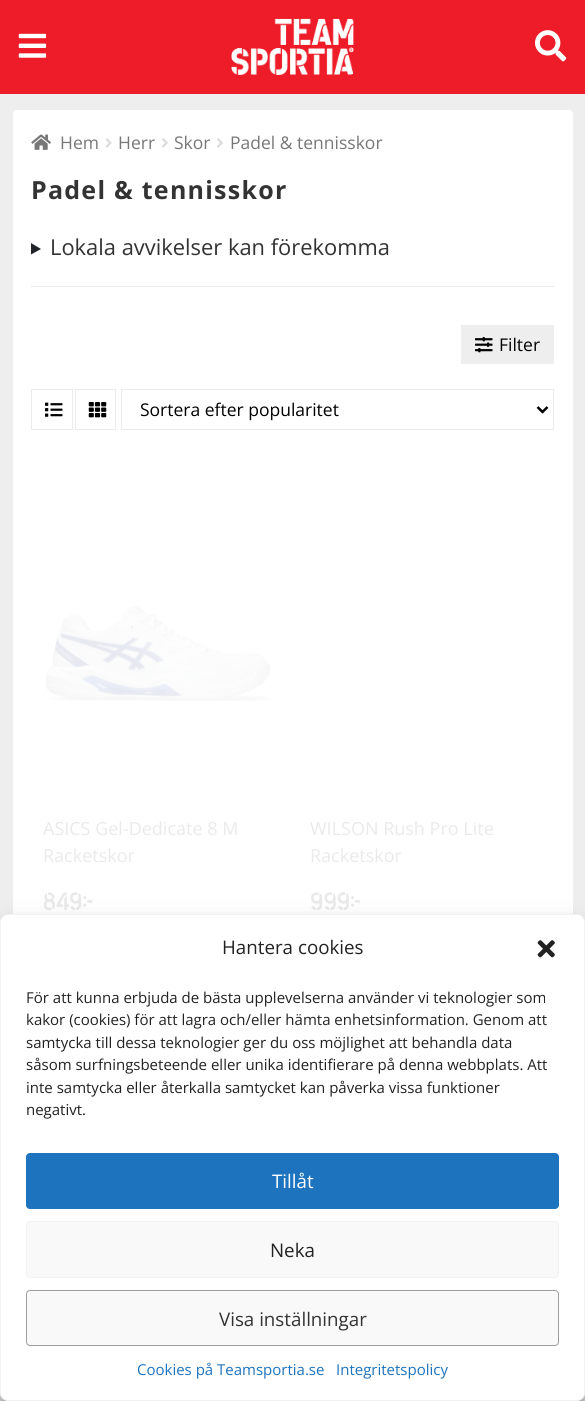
import math
import cairo

surface = cairo.ImageSurface(cairo.FORMAT_RGB24, 585, 1401)
c = cairo.Context(surface)
options = cairo.FontOptions()
options.set_hint_metrics(cairo.HINT_METRICS_OFF)
options.set_hint_style(cairo.HINT_STYLE_NONE)
c.set_font_options(options)
c.set_miter_limit(4)
def C(code):
 c.set_source_rgb(*(v / 255 for v in bytes.fromhex(code[-6:])))
def F(family, size, italic, bold):
 c.select_font_face(family, cairo.FONT_SLANT_ITALIC if italic else cairo.FONT_SLANT_NORMAL, cairo.FONT_WEIGHT_BOLD if bold else cairo.FONT_WEIGHT_NORMAL)
 c.set_font_size(size)
def T(x, y, s):
 c.move_to(x, y)
 c.show_text(s)
def L(x, y, s, letter, word):
 c.move_to(x, y)
 for ch in s:
  c.show_text(ch)
  c.rel_move_to(letter + word * (ch == ' '), 0)
def R(x, y, w, h):
 c.rectangle(x, y, w, h)
 c.fill()
def Q(x, y, w, h, r):
 c.new_sub_path()
 for i, (u, v) in enumerate([(x + w - r, y + h - r), (x + r, y + h - r), (x + r, y + r), (x + w - r, y + r)]):
  c.arc(u, v, r, i * math.pi / 2, (i + 1) * math.pi / 2)
 c.close_path()
def S(x, y, w, h, r, blur, alpha):
 c.push_group_with_content(cairo.CONTENT_ALPHA)
 c.set_operator(cairo.OPERATOR_SOURCE)
 for i in range(15, -16, -2):
  e = blur * i / 6
  if min(w, h) + 2 * e > 0:
   c.set_source_rgba(0, 0, 0, alpha * math.erfc((i - 1) / 8.5) / 2)
   Q(x - e, y - e, w + 2 * e, h + 2 * e, max(0, min(r + e + blur * .6, min(w, h) / 2 + e)))
   c.fill()
 c.mask(c.pop_group())
def I(path, x, y, w, h):
 c.save()
 c.set_source_surface(cairo.ImageSurface.create_from_png(path), x, y)
 c.rectangle(x, y, w, h)
 c.fill()
 c.restore()
C('eeeeee')
c.paint()
C('ed1c28')
R(0,0,585,94)
I('1.png',18,33,29,25)
I('2.png',231,18,123,57)
I('3.png',535,30,32,32)
C('ffffff')
Q(13,110,560,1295,4)
c.fill()
I('4.png',31,134,20,16)
F('Open Sans',17.5,0,0)
C('777777')
T(60,149,'Hem')
I('5.png',105,138,7,10)
T(118,149,'Herr')
I('6.png',162,138,6,10)
T(174,149,'Skor')
I('6.png',217,138,6,10)
T(230,149,'Padel & tennisskor')
C('ebebeb')
R(31,286,523,1)
F('Open Sans',25,0,1)
C('333333')
L(31,199,'Padel & tennisskor',1.25,0)
C('212529')
c.new_path()
c.move_to(31,243)
c.line_to(41,249)
c.line_to(31,254.5)
c.close_path()
c.fill()
F('Open Sans',21.9,0,0)
C('333333')
T(50,255,'Lokala avvikelser kan förekomma')
C('eeeeee')
R(461,325,93,39)
I('7.png',475,337,18,16)
F('Open Sans',17.5,0,0)
C('000000')
T(499,351,'Filter')
c.rectangle(31.5,389.5,41,40)
C('ebebeb')
c.set_line_width(1)
c.stroke()
I('8.png',45,402,18,15)
c.rectangle(75.5,389.5,40,40)
c.stroke()
I('9.png',88,402,19,16)
c.rectangle(121.5,389.5,432,40)
c.stroke()
c.new_path()
c.move_to(537.5,407)
c.line_to(542.5,412)
c.line_to(547.5,407)
C('000000')
c.set_line_width(2.5)
c.stroke()
T(140,416,'Sortera efter popularitet')
I('10.png',46,606,224,95)
F('Open Sans',18,0,0)
C('eaeaea')
T(43,835,'ASICS Gel-Dedicate 8 M')
T(43,862,'Racketskor')
F('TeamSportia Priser',25,0,0)
T(43,910,'849kr')
F('Open Sans',18,0,0)
T(310,835,'WILSON Rush Pro Lite')
T(310,862,'Racketskor')
F('TeamSportia Priser',25,0,0)
T(310,910,'999kr')
C('000000')
S(0,921,585,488,8,4,.23)
S(0,926,585,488,8,12.5,.19)
C('ffffff')
Q(.5,914.5,584,486,7.5)
c.fill_preserve()
C('f2f2f2')
c.set_line_width(1)
c.stroke()
F('Open Sans',18.75,0,0)
C('222222')
T(222,954,'Hantera cookies')
I('11.png',537,940,18,18)
F('Open Sans',15,0,0)
T(26,1003,'För att kunna erbjuda de bästa upplevelserna använder vi teknologier som')
T(26,1025,'kakor (cookies) för att lagra och/eller hämta enhetsinformation. Genom att')
T(26,1048,'samtycka till dessa teknologier ger du oss möjlighet att behandla data')
T(26,1070,'såsom surfningsbeteende eller unika identifierare på denna webbplats. Att')
T(26,1093,'inte samtycka eller återkalla samtycket kan påverka vissa funktioner')
T(26,1115,'negativt.')
C('1e73be')
Q(26.5,1153.5,532,55,3.5)
c.fill_preserve()
c.stroke()
F('Open Sans',18.75,0,0)
C('ffffff')
T(272,1188,'Tillåt')
C('f9f9f9')
Q(26.5,1221.5,532,56,3.5)
c.fill_preserve()
C('f2f2f2')
c.stroke()
C('222222')
T(270,1257,'Neka')
C('f9f9f9')
Q(26.5,1290.5,532,55,3.5)
c.fill_preserve()
C('9e9e9e')
c.stroke()
C('333333')
T(219,1326,'Visa inställningar')
F('Open Sans',15,0,0)
C('1e73be')
T(137,1375,'Cookies på Teamsportia.se')
T(336,1375,'Integritetspolicy')
surface.write_to_png('o.png')
